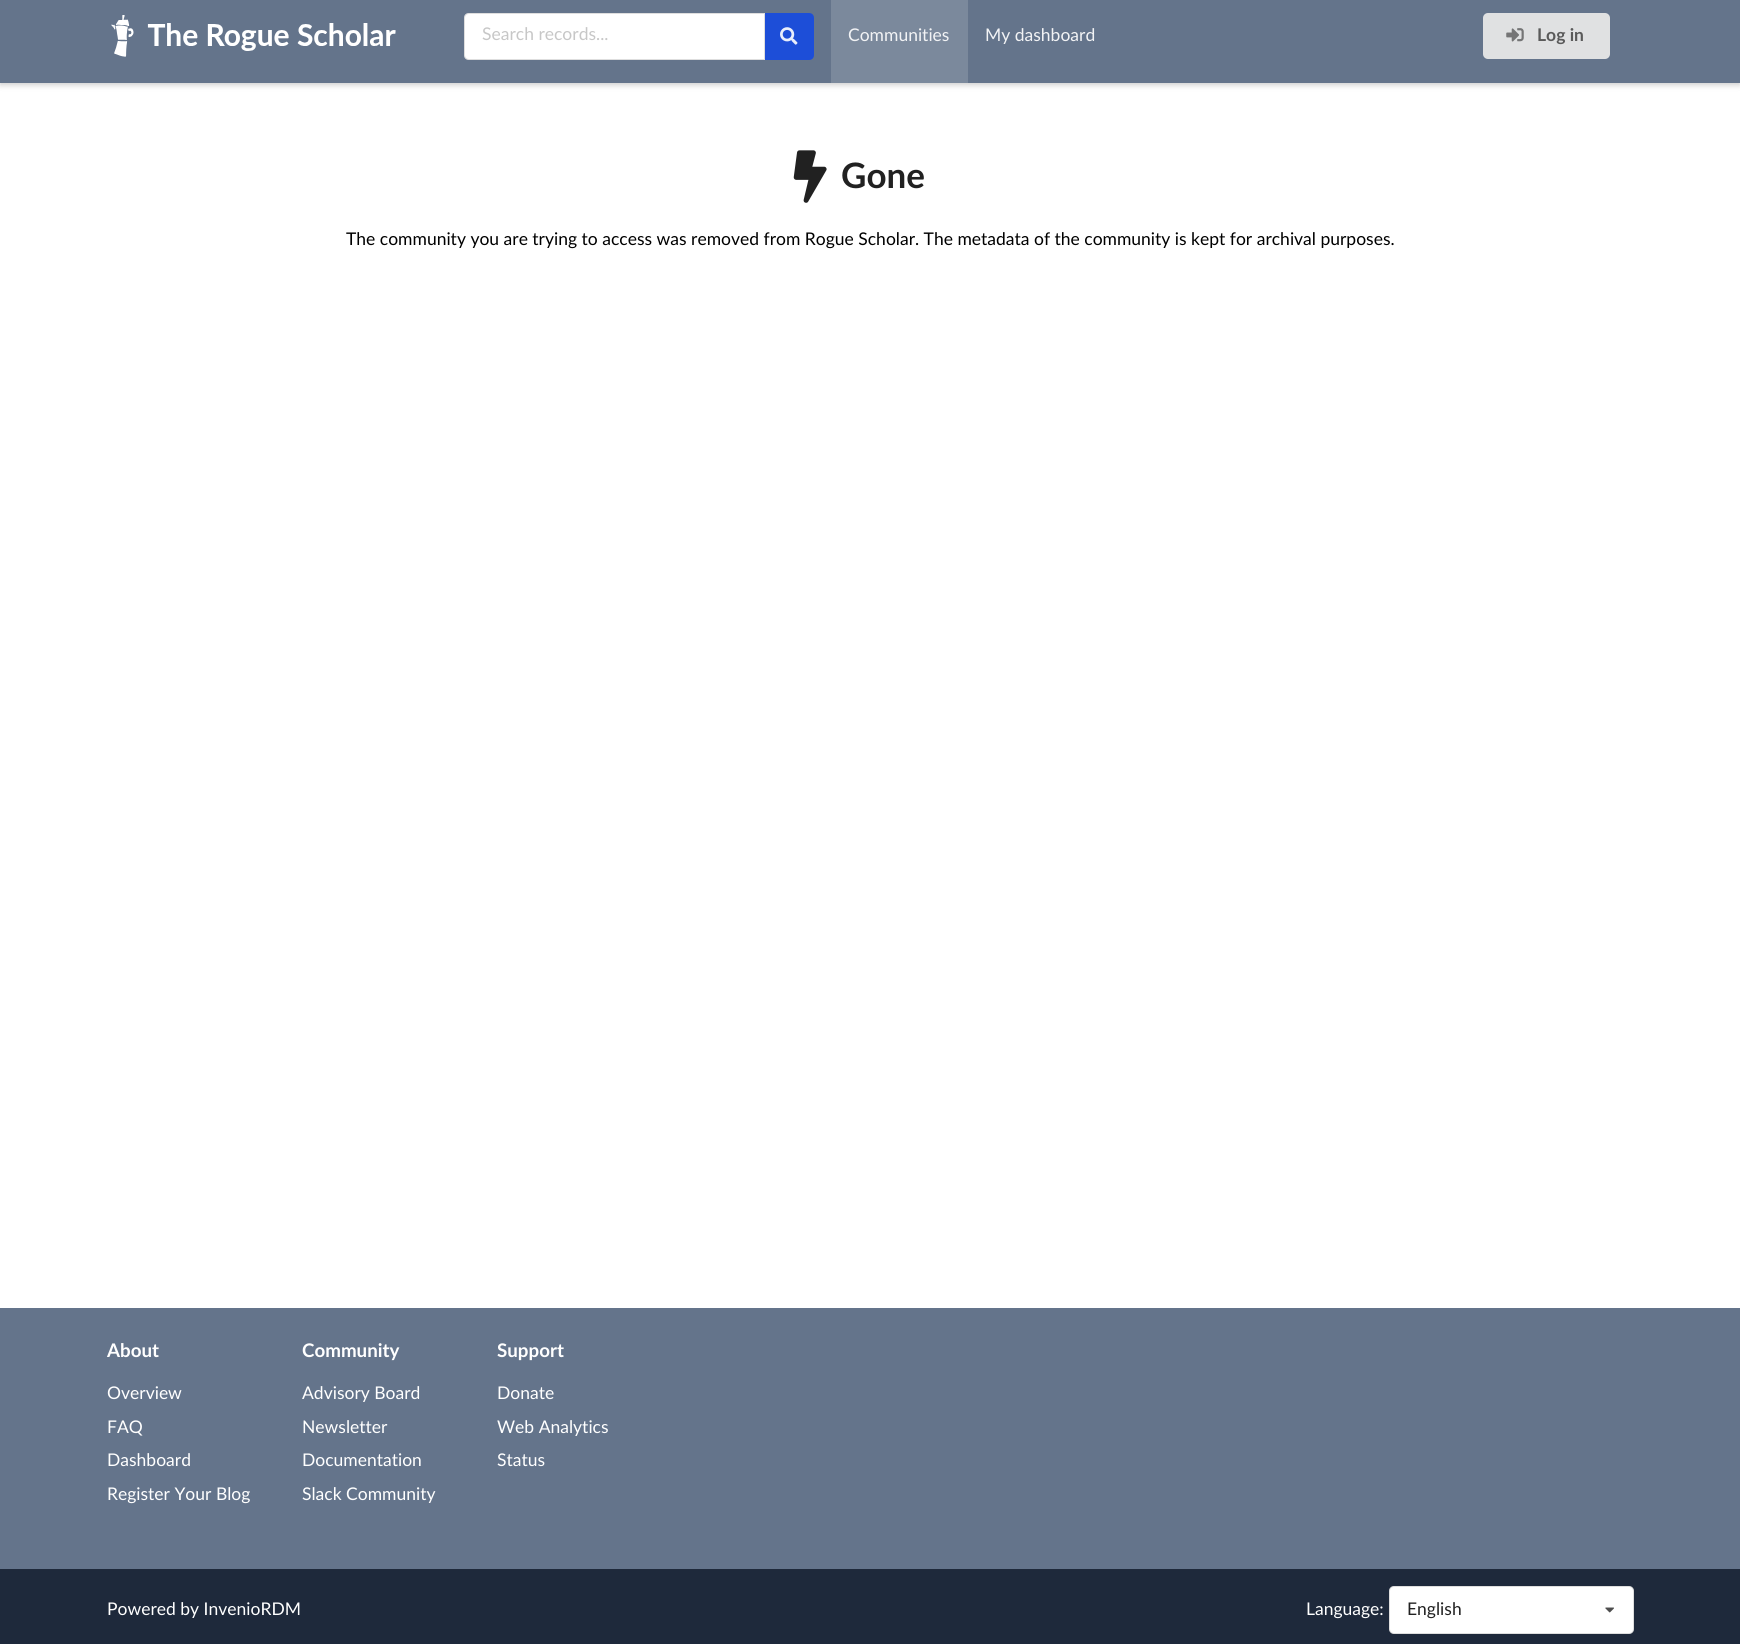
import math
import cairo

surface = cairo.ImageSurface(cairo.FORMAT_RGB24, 1740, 1644)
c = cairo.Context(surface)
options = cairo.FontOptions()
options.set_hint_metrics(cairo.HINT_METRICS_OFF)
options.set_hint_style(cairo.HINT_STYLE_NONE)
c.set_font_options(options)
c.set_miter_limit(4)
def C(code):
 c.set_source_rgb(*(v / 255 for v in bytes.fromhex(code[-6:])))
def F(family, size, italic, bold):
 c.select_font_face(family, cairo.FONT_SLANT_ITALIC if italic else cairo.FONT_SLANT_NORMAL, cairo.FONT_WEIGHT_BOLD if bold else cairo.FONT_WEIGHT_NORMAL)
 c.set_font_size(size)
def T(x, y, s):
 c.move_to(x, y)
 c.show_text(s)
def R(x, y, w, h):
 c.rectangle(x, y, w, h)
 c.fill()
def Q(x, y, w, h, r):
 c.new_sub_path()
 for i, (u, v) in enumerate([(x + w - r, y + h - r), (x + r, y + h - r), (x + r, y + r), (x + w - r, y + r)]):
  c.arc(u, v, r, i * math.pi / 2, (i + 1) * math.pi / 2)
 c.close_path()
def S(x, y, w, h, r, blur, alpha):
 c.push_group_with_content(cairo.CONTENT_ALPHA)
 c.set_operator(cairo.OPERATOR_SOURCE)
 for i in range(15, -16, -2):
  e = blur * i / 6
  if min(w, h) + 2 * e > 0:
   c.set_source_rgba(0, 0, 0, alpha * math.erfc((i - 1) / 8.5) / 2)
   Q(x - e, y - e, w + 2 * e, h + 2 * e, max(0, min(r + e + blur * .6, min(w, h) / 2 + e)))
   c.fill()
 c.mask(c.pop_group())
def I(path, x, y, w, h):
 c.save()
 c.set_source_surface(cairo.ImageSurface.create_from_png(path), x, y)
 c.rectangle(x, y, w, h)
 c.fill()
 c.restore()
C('ffffff')
c.paint()
C('000000')
S(0,-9,1740,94,0,3,.2)
C('64748b')
R(0,0,1740,83)
I('1.png',111,15,285,42)
C('ffffff')
c.new_path()
c.move_to(469,13)
c.line_to(765,13)
c.line_to(765,60)
c.line_to(469,60)
c.curve_to(466,60,464,58,464,55)
c.line_to(464,18)
c.curve_to(464,15,466,13,469,13)
c.close_path()
c.fill()
c.new_path()
c.move_to(469,13.5)
c.line_to(764.5,13.5)
c.line_to(764.5,59.5)
c.line_to(469,59.5)
c.curve_to(466.5,59.5,464.5,57.5,464.5,55)
c.line_to(464.5,18)
c.curve_to(464.5,15.5,466.5,13.5,469,13.5)
c.close_path()
c.set_source_rgba(0.133,0.141,0.149,0.15)
c.set_line_width(1)
c.stroke()
F('Lato',17.5,0,0)
C('c7c7c7')
T(482,40,'Search records...')
C('1d4ed8')
c.new_path()
c.move_to(765,13)
c.line_to(809,13)
c.curve_to(812,13,814,15,814,18)
c.line_to(814,55)
c.curve_to(814,58,812,60,809,60)
c.line_to(765,60)
c.close_path()
c.fill()
I('2.png',780,27,18,18)
C('7b899c')
R(831,0,137,83)
C('f2f3f5')
T(848,41,'Communities')
T(985,41,'My dashboard')
C('e0e1e2')
Q(1483,13,127,46,5)
c.fill()
I('3.png',1506,28,18,14)
F('Lato',17.5,0,1)
C('5a5a5a')
T(1537,41,'Log in')
I('4.png',793,150,34,53)
F('Lato',35,0,1)
C('212121')
T(841,188,'Gone')
F('Lato',17.5,0,0)
C('000000')
T(346,245,'The community you are trying to access was removed from Rogue Scholar. The metadata of the community is kept for archival purposes.')
C('64748b')
R(0,1308,1740,261)
F('Lato',18.75,0,1)
C('ffffff')
T(107,1357,'About')
F('Lato',17.5,0,0)
T(107,1399,'Overview')
T(107,1433,'FAQ')
T(107,1466,'Dashboard')
T(107,1500,'Register Your Blog')
F('Lato',18.75,0,1)
T(302,1357,'Community')
F('Lato',17.5,0,0)
T(302,1399,'Advisory Board')
T(302,1433,'Newsletter')
T(302,1466,'Documentation')
T(302,1500,'Slack Community')
F('Lato',18.75,0,1)
T(497,1357,'Support')
F('Lato',17.5,0,0)
T(497,1399,'Donate')
T(497,1433,'Web Analytics')
T(497,1466,'Status')
C('1e293b')
R(0,1569,1740,75)
C('ffffff')
T(107,1615,'Powered by InvenioRDM')
T(1306,1615,'Language:')
Q(1389,1586,245,48,5)
c.fill()
Q(1389.5,1586.5,244,47,4.5)
c.set_source_rgba(0.133,0.141,0.149,0.15)
c.stroke()
C('212121')
T(1407,1615,'English')
I('5.png',1605,1607,9,6)
surface.write_to_png('o.png')
